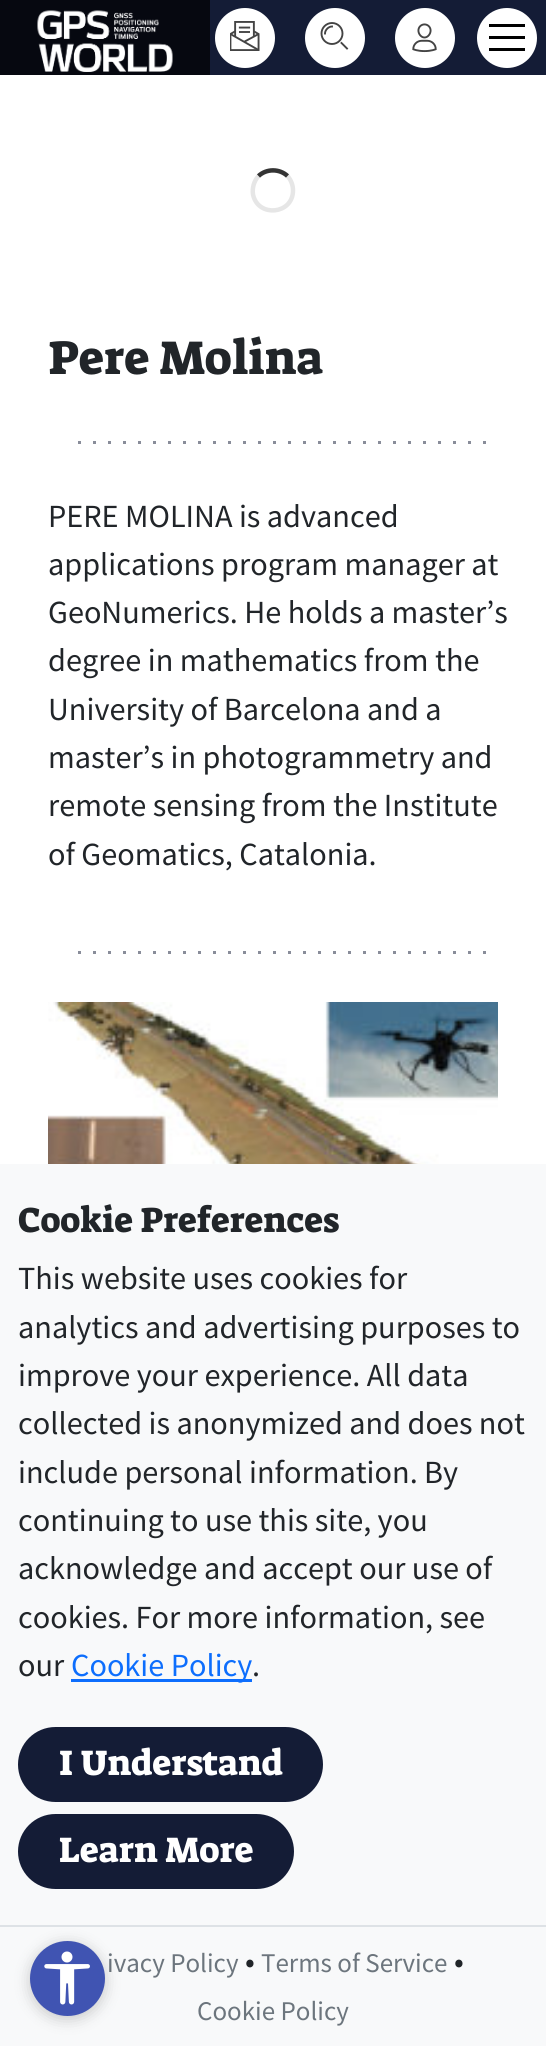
import math
import cairo

surface = cairo.ImageSurface(cairo.FORMAT_RGB24, 546, 2046)
c = cairo.Context(surface)
options = cairo.FontOptions()
options.set_hint_metrics(cairo.HINT_METRICS_OFF)
options.set_hint_style(cairo.HINT_STYLE_NONE)
c.set_font_options(options)
c.set_miter_limit(4)
def C(code):
 c.set_source_rgb(*(v / 255 for v in bytes.fromhex(code[-6:])))
def F(family, size, italic, bold):
 c.select_font_face(family, cairo.FONT_SLANT_ITALIC if italic else cairo.FONT_SLANT_NORMAL, cairo.FONT_WEIGHT_BOLD if bold else cairo.FONT_WEIGHT_NORMAL)
 c.set_font_size(size)
def T(x, y, s):
 c.move_to(x, y)
 c.show_text(s)
def R(x, y, w, h):
 c.rectangle(x, y, w, h)
 c.fill()
def Q(x, y, w, h, r):
 c.new_sub_path()
 for i, (u, v) in enumerate([(x + w - r, y + h - r), (x + r, y + h - r), (x + r, y + r), (x + w - r, y + r)]):
  c.arc(u, v, r, i * math.pi / 2, (i + 1) * math.pi / 2)
 c.close_path()
def S(x, y, w, h, r, blur, alpha):
 c.push_group_with_content(cairo.CONTENT_ALPHA)
 c.set_operator(cairo.OPERATOR_SOURCE)
 for i in range(15, -16, -2):
  e = blur * i / 6
  if min(w, h) + 2 * e > 0:
   c.set_source_rgba(0, 0, 0, alpha * math.erfc((i - 1) / 8.5) / 2)
   Q(x - e, y - e, w + 2 * e, h + 2 * e, max(0, min(r + e + blur * .6, min(w, h) / 2 + e)))
   c.fill()
 c.mask(c.pop_group())
def I(path, x, y, w, h):
 c.save()
 c.set_source_surface(cairo.ImageSurface.create_from_png(path), x, y)
 c.rectangle(x, y, w, h)
 c.fill()
 c.restore()
C('ffffff')
c.paint()
C('141c36')
R(210,0,336,75)
C('060810')
R(0,0,210,75)
I('1.png',37,10,136,62)
C('ffffff')
c.arc(245,38,30,0,2 * math.pi)
c.fill()
I('2.png',230,21,30,30)
c.arc(335,38,30,0,2 * math.pi)
c.fill()
c.new_path()
c.move_to(347,48.5)
c.line_to(341.5,43)
C('444444')
c.set_line_width(1.9)
c.set_line_cap(cairo.LINE_CAP_SQUARE)
c.stroke()
c.arc(332,33.5,10.5,0,2 * math.pi)
c.set_line_cap(cairo.LINE_CAP_BUTT)
c.stroke()
c.new_path()
c.move_to(325,33.5)
c.curve_to(325,30,328.5,26.5,332,26.5)
c.set_line_cap(cairo.LINE_CAP_SQUARE)
c.stroke()
C('ffffff')
c.arc(425,38,30,0,2 * math.pi)
c.fill()
I('3.png',412,23,25,30)
c.arc(507,38,30,0,2 * math.pi)
c.fill()
C('000000')
R(489,24,36,3)
R(489,36,36,3)
R(489,48,36,3)
c.new_path()
c.move_to(258.5,176)
c.curve_to(266.5,168.5,279.5,168.5,287.5,176)
C('333333')
c.set_line_width(4.5)
c.set_line_cap(cairo.LINE_CAP_BUTT)
c.stroke()
c.new_path()
c.move_to(287.5,176)
c.curve_to(291,180,293,185,293,190.5)
c.curve_to(293,214.5,258,218,253,194.5)
c.curve_to(252,188,254,181,258.5,176)
c.set_source_rgba(0,0,0,0.1)
c.stroke()
F('Suez One',48,0,0)
C('212529')
T(48,374,'Pere Molina')
I('4.png',78,441,408,3)
F('Source Sans Pro',32.25,0,0)
T(48,527,'PERE MOLINA is advanced')
T(48,575,'applications program manager at')
T(48,623,'GeoNumerics. He holds a master’s')
T(48,671,'degree in mathematics from the')
T(48,720,'University of Barcelona and a')
T(48,768,'master’s in photogrammetry and')
T(48,816,'remote sensing from the Institute')
T(48,865,'of Geomatics, Catalonia.')
I('4.png',78,951,408,3)
I('5.png',48,1002,450,162)
C('f8f9fa')
R(0,1164,546,882)
F('Suez One',35.5,0,0)
C('212529')
T(18,1232,'Cookie Preferences')
F('Source Sans Pro',32.25,0,0)
T(18,1289,'This website uses cookies for')
T(18,1338,'analytics and advertising purposes to')
T(18,1386,'improve your experience. All data')
T(18,1434,'collected is anonymized and does not')
T(18,1483,'include personal information. By')
T(18,1531,'continuing to use this site, you')
T(18,1579,'acknowledge and accept our use of')
T(18,1628,'cookies. For more information, see')
T(18,1676,'our')
C('0d6efd')
R(71,1679,181,3)
T(71,1676,'Cookie Policy')
C('212529')
T(252,1676,'.')
C('141c36')
Q(20.5,1729.5,300,70,35)
c.fill_preserve()
c.set_line_width(5)
c.stroke()
F('Suez One',36,0,0)
C('ffffff')
T(59,1775,'I Understand')
C('141c36')
Q(20.5,1816.5,271,70,35)
c.fill_preserve()
c.stroke()
C('ffffff')
T(59,1862,'Learn More')
C('dee2e6')
R(0,1925,546,2)
F('Source Sans Pro',27,0,0)
C('6c757d')
T(107,1972,'ivacy Policy')
F('Source Sans Pro',32.25,0,0)
C('212529')
T(245,1972,'•')
F('Source Sans Pro',27,0,0)
C('6c757d')
T(261,1972,'Terms of Service')
F('Source Sans Pro',32.25,0,0)
C('212529')
T(454,1972,'•')
F('Source Sans Pro',27,0,0)
C('6c757d')
T(197,2020,'Cookie Policy')
C('000000')
S(30,1944,75,75,37.5,7.5,.2)
C('4054b2')
c.arc(67.5,1978.5,37.5,0,2 * math.pi)
c.fill()
I('6.png',44,1951,46,54)
surface.write_to_png('o.png')
